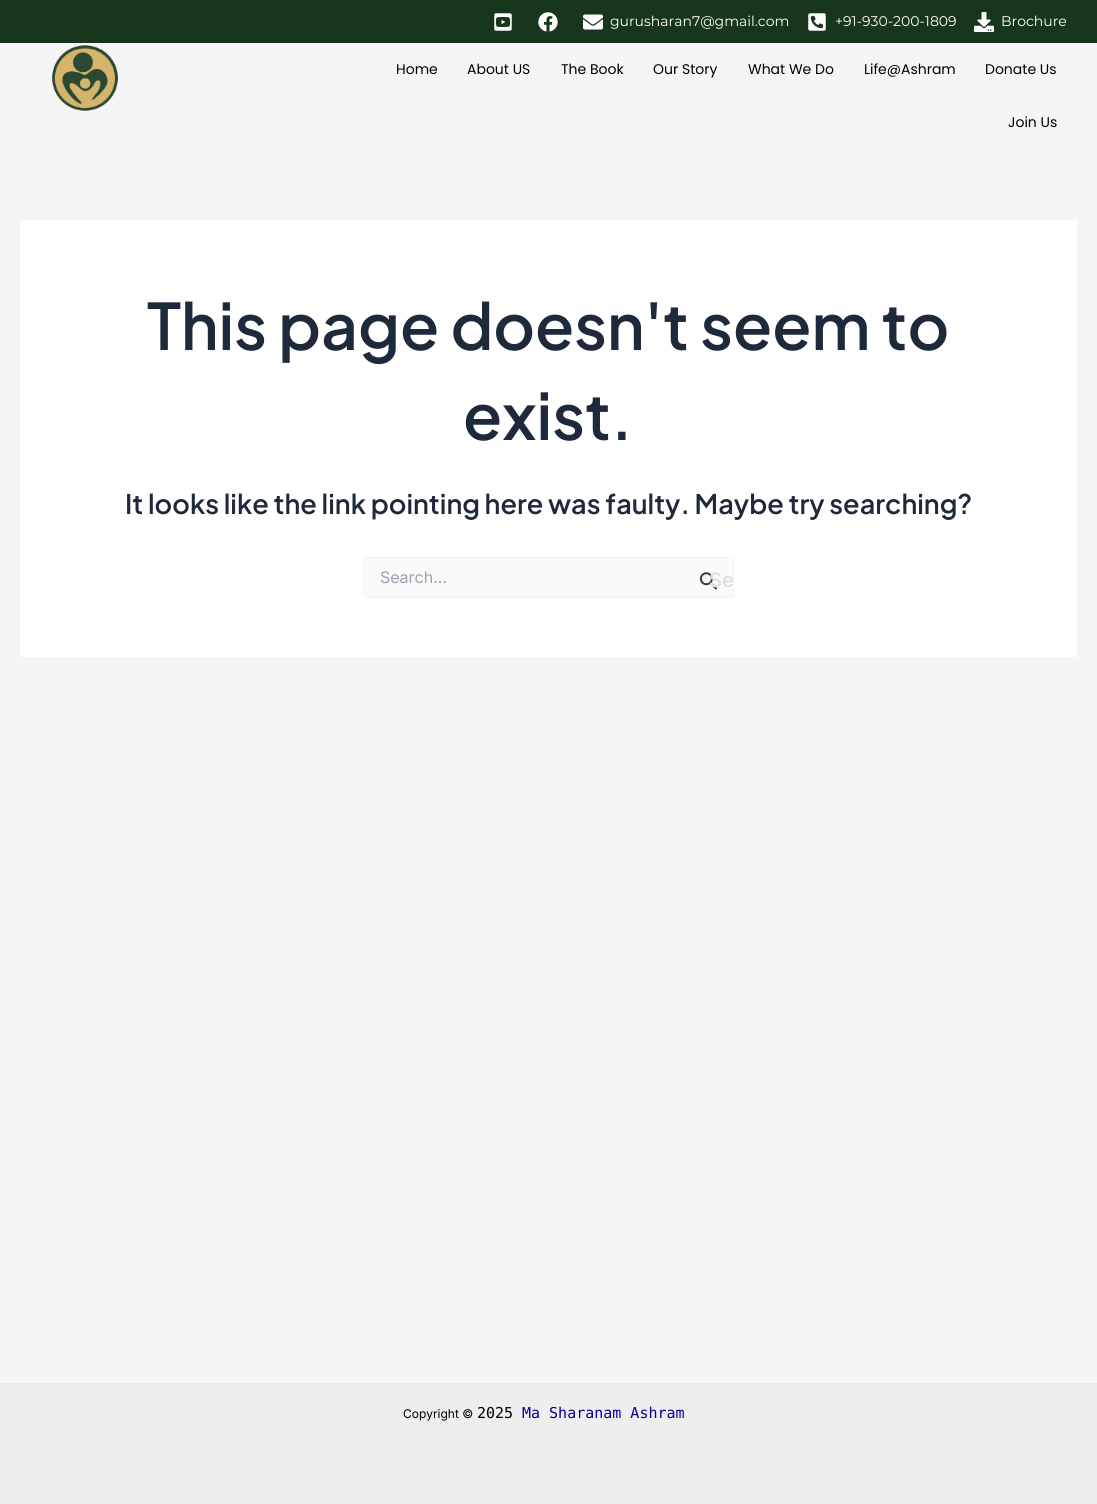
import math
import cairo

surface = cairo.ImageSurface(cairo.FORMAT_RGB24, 1097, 1504)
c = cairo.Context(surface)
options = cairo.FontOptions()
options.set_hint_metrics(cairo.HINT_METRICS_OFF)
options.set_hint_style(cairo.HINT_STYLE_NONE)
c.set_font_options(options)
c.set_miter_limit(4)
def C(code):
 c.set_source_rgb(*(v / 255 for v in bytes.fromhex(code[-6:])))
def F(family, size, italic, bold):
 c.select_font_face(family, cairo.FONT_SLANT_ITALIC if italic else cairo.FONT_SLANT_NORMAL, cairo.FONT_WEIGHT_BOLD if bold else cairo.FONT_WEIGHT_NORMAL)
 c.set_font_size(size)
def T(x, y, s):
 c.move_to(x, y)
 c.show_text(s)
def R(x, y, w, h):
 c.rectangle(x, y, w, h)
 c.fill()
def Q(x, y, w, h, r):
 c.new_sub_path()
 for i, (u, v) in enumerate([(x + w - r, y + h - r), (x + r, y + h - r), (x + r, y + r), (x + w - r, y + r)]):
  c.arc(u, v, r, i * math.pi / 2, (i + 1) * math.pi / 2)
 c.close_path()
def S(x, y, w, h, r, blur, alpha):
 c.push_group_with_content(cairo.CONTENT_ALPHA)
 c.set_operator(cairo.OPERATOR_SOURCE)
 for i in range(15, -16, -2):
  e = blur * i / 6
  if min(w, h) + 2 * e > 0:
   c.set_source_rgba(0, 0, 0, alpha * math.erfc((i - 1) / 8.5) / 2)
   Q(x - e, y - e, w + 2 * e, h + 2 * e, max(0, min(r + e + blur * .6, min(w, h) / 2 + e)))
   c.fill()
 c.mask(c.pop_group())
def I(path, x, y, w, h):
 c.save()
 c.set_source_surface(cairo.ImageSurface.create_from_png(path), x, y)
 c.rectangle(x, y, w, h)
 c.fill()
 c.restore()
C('f5f5f5')
c.paint()
C('18361c')
R(0,0,1097,43)
I('1.png',494,13,18,18)
I('2.png',538,12,20,20)
I('3.png',583,14,20,16)
F('Montserrat',14,0,0)
C('ffffff')
T(610,26,'gurusharan7@gmail.com')
I('4.png',808,13,18,18)
T(835,26,'+91-930-200-1809')
I('5.png',974,12,20,20)
T(1001,26,'Brochure')
I('6.png',52,45,66,66)
F('Poppins',14,0,0)
C('000000')
T(396,74,'Home')
T(467,74,'About US')
T(561,74,'The Book')
T(653,74,'Our Story')
T(748,74,'What We Do')
T(864,74,'Life@Ashram')
T(985,74,'Donate Us')
T(1008,127,'Join Us')
C('ffffff')
R(20,220,1057,437)
F('Plus Jakarta Sans SemiBold',64,0,0)
C('1e293b')
T(147,350,'This page doesn\'t seem to')
T(463,440,'exist.')
F('Plus Jakarta Sans SemiBold',27,0,0)
T(125,514,'It looks like the link pointing here was faulty. Maybe try searching?')
C('000000')
S(364,558,370,40,2,1,.05)
C('fafafa')
Q(364.5,557.5,369,39,1.5)
c.fill_preserve()
C('f2f5f7')
c.set_line_width(1)
c.stroke()
F('Inter',16,0,0)
C('9ca3af')
T(380,583,'Search...')
I('7.png',699,572,18,18)
F('Inter SemiBold',20,0,0)
C('e0e0e0')
T(709,587,'Se')
C('eeeeee')
R(0,1384,1097,120)
C('eaeaea')
R(0,1383,1097,1)
F('Inter',12,0,0)
C('000000')
T(403,1418,'Copyright ©')
F('DejaVu Sans Mono',15,0,0)
T(477,1418,'2025')
C('060097')
T(522,1418,'Ma Sharanam Ashram')
surface.write_to_png('o.png')
